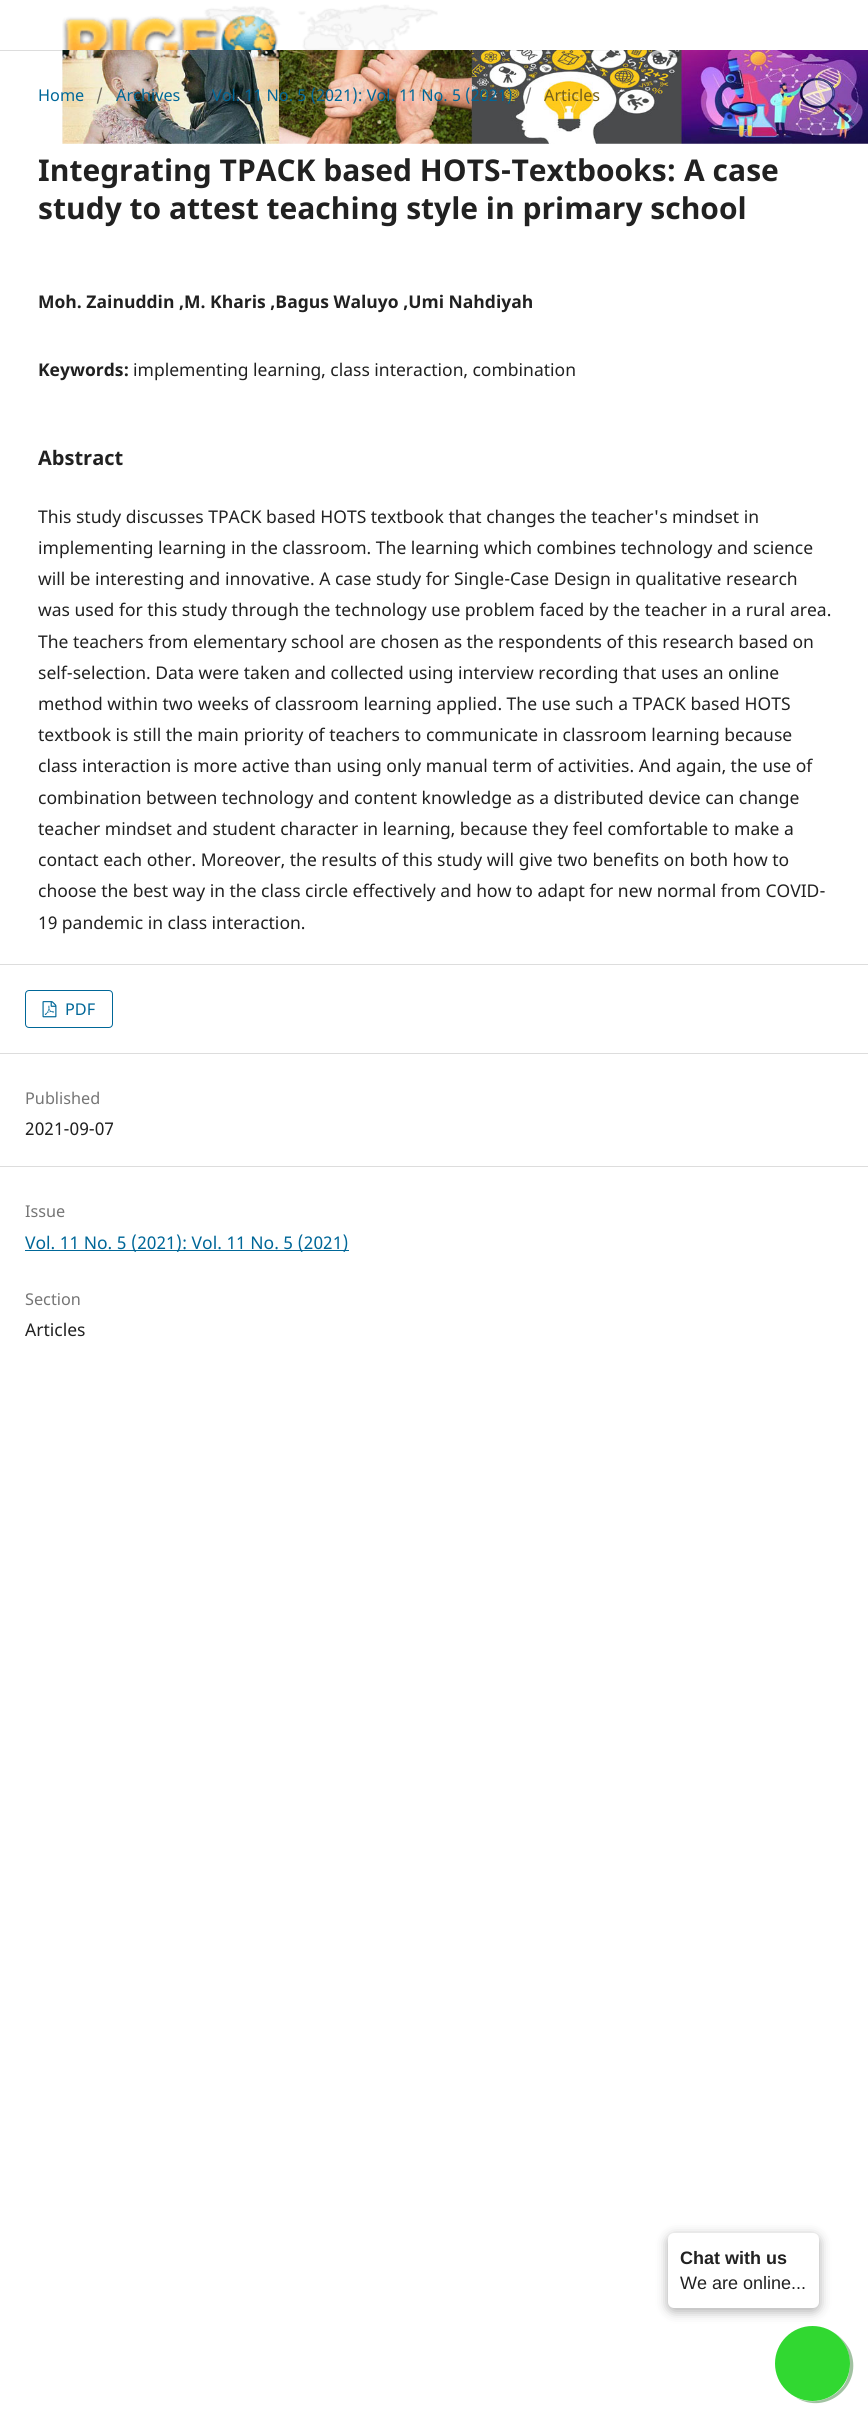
import math
import cairo

surface = cairo.ImageSurface(cairo.FORMAT_RGB24, 868, 2420)
c = cairo.Context(surface)
options = cairo.FontOptions()
options.set_hint_metrics(cairo.HINT_METRICS_OFF)
options.set_hint_style(cairo.HINT_STYLE_NONE)
c.set_font_options(options)
c.set_miter_limit(4)
def C(code):
 c.set_source_rgb(*(v / 255 for v in bytes.fromhex(code[-6:])))
def F(family, size, italic, bold):
 c.select_font_face(family, cairo.FONT_SLANT_ITALIC if italic else cairo.FONT_SLANT_NORMAL, cairo.FONT_WEIGHT_BOLD if bold else cairo.FONT_WEIGHT_NORMAL)
 c.set_font_size(size)
def T(x, y, s):
 c.move_to(x, y)
 c.show_text(s)
def R(x, y, w, h):
 c.rectangle(x, y, w, h)
 c.fill()
def Q(x, y, w, h, r):
 c.new_sub_path()
 for i, (u, v) in enumerate([(x + w - r, y + h - r), (x + r, y + h - r), (x + r, y + r), (x + w - r, y + r)]):
  c.arc(u, v, r, i * math.pi / 2, (i + 1) * math.pi / 2)
 c.close_path()
def S(x, y, w, h, r, blur, alpha):
 c.push_group_with_content(cairo.CONTENT_ALPHA)
 c.set_operator(cairo.OPERATOR_SOURCE)
 for i in range(15, -16, -2):
  e = blur * i / 6
  if min(w, h) + 2 * e > 0:
   c.set_source_rgba(0, 0, 0, alpha * math.erfc((i - 1) / 8.5) / 2)
   Q(x - e, y - e, w + 2 * e, h + 2 * e, max(0, min(r + e + blur * .6, min(w, h) / 2 + e)))
   c.fill()
 c.mask(c.pop_group())
def I(path, x, y, w, h):
 c.save()
 c.set_source_surface(cairo.ImageSurface.create_from_png(path), x, y)
 c.rectangle(x, y, w, h)
 c.fill()
 c.restore()
C('ffffff')
c.paint()
C('dddddd')
R(0,50,63,1)
I('1.png',62,4,376,66)
I('2.png',62,50,806,94)
F('Noto Sans',16.25,0,0)
C('006798')
T(38,101,'Home')
C('706d61')
T(96,101,'/')
C('006798')
T(116,101,'Archives')
T(212,101,'Vol. 11 No. 5 (2021): Vol. 11 No. 5 (2021)')
C('757575')
T(525,101,'/')
C('75601c')
T(544,101,'Articles')
F('Noto Sans',30,0,1)
C('212121')
T(38,181,'Integrating TPACK based HOTS-Textbooks: A case')
T(38,219,'study to attest teaching style in primary school')
F('Noto Sans',17.5,0,1)
T(38,308,'Moh. Zainuddin ,M. Kharis ,Bagus Waluyo ,Umi Nahdiyah')
T(38,376,'Keywords:')
F('Noto Sans',17.5,0,0)
T(133,376,'implementing learning, class interaction, combination')
F('Noto Sans',20,0,1)
T(38,465,'Abstract')
F('Noto Sans',17.5,0,0)
T(38,523,'This study discusses TPACK based HOTS textbook that changes the teacher\'s mindset in')
T(38,554,'implementing learning in the classroom. The learning which combines technology and science')
T(38,585,'will be interesting and innovative. A case study for Single-Case Design in qualitative research')
T(38,616,'was used for this study through the technology use problem faced by the teacher in a rural area.')
T(38,648,'The teachers from elementary school are chosen as the respondents of this research based on')
T(38,679,'self-selection. Data were taken and collected using interview recording that uses an online')
T(38,710,'method within two weeks of classroom learning applied. The use such a TPACK based HOTS')
T(38,741,'textbook is still the main priority of teachers to communicate in classroom learning because')
T(38,772,'class interaction is more active than using only manual term of activities. And again, the use of')
T(38,804,'combination between technology and content knowledge as a distributed device can change')
T(38,835,'teacher mindset and student character in learning, because they feel comfortable to make a')
T(38,866,'contact each other. Moreover, the results of this study will give two benefits on both how to')
T(38,897,'choose the best way in the class circle effectively and how to adapt for new normal from COVID-')
T(38,929,'19 pandemic in class interaction.')
C('dddddd')
R(0,964,868,1)
R(0,1053,868,1)
Q(25.5,990.5,87,37,3.5)
C('006798')
c.set_line_width(1)
c.stroke()
I('3.png',42,1001,15,17)
F('Noto Sans',16.25,0,0)
T(65,1015,'PDF')
C('dddddd')
R(0,1166,868,1)
C('757575')
T(25,1104,'Published')
F('Noto Sans',17.5,0,0)
C('212121')
T(25,1135,'2021-09-07')
F('Noto Sans',16.25,0,0)
C('757575')
T(25,1217,'Issue')
C('006798')
R(25,1250,324,1)
F('Noto Sans',17.5,0,0)
T(25,1249,'Vol. 11 No. 5 (2021): Vol. 11 No. 5 (2021)')
F('Noto Sans',16.25,0,0)
C('757575')
T(25,1305,'Section')
F('Noto Sans',17.5,0,0)
C('212121')
T(25,1336,'Articles')
C('000000')
S(668,2236,151,75,6,6,.34)
C('ffffff')
Q(668,2233,151,75,6)
c.fill()
F('Liberation Sans',18,0,1)
C('212121')
T(680,2264,'Chat with us')
F('Liberation Sans',18,0,0)
T(680,2289,'We are online...')
C('a1c2a1')
c.new_path()
c.move_to(795,2397)
c.curve_to(826,2417,865,2385,850,2350)
c.curve_to(846,2343,840,2336,833,2332)
c.curve_to(850,2343,855,2367,844,2385)
c.curve_to(833,2400,812,2406,795,2397)
c.close_path()
c.fill()
C('31d831')
c.arc(812.5,2363.5,37.5,0,2 * math.pi)
c.fill()
surface.write_to_png('o.png')
